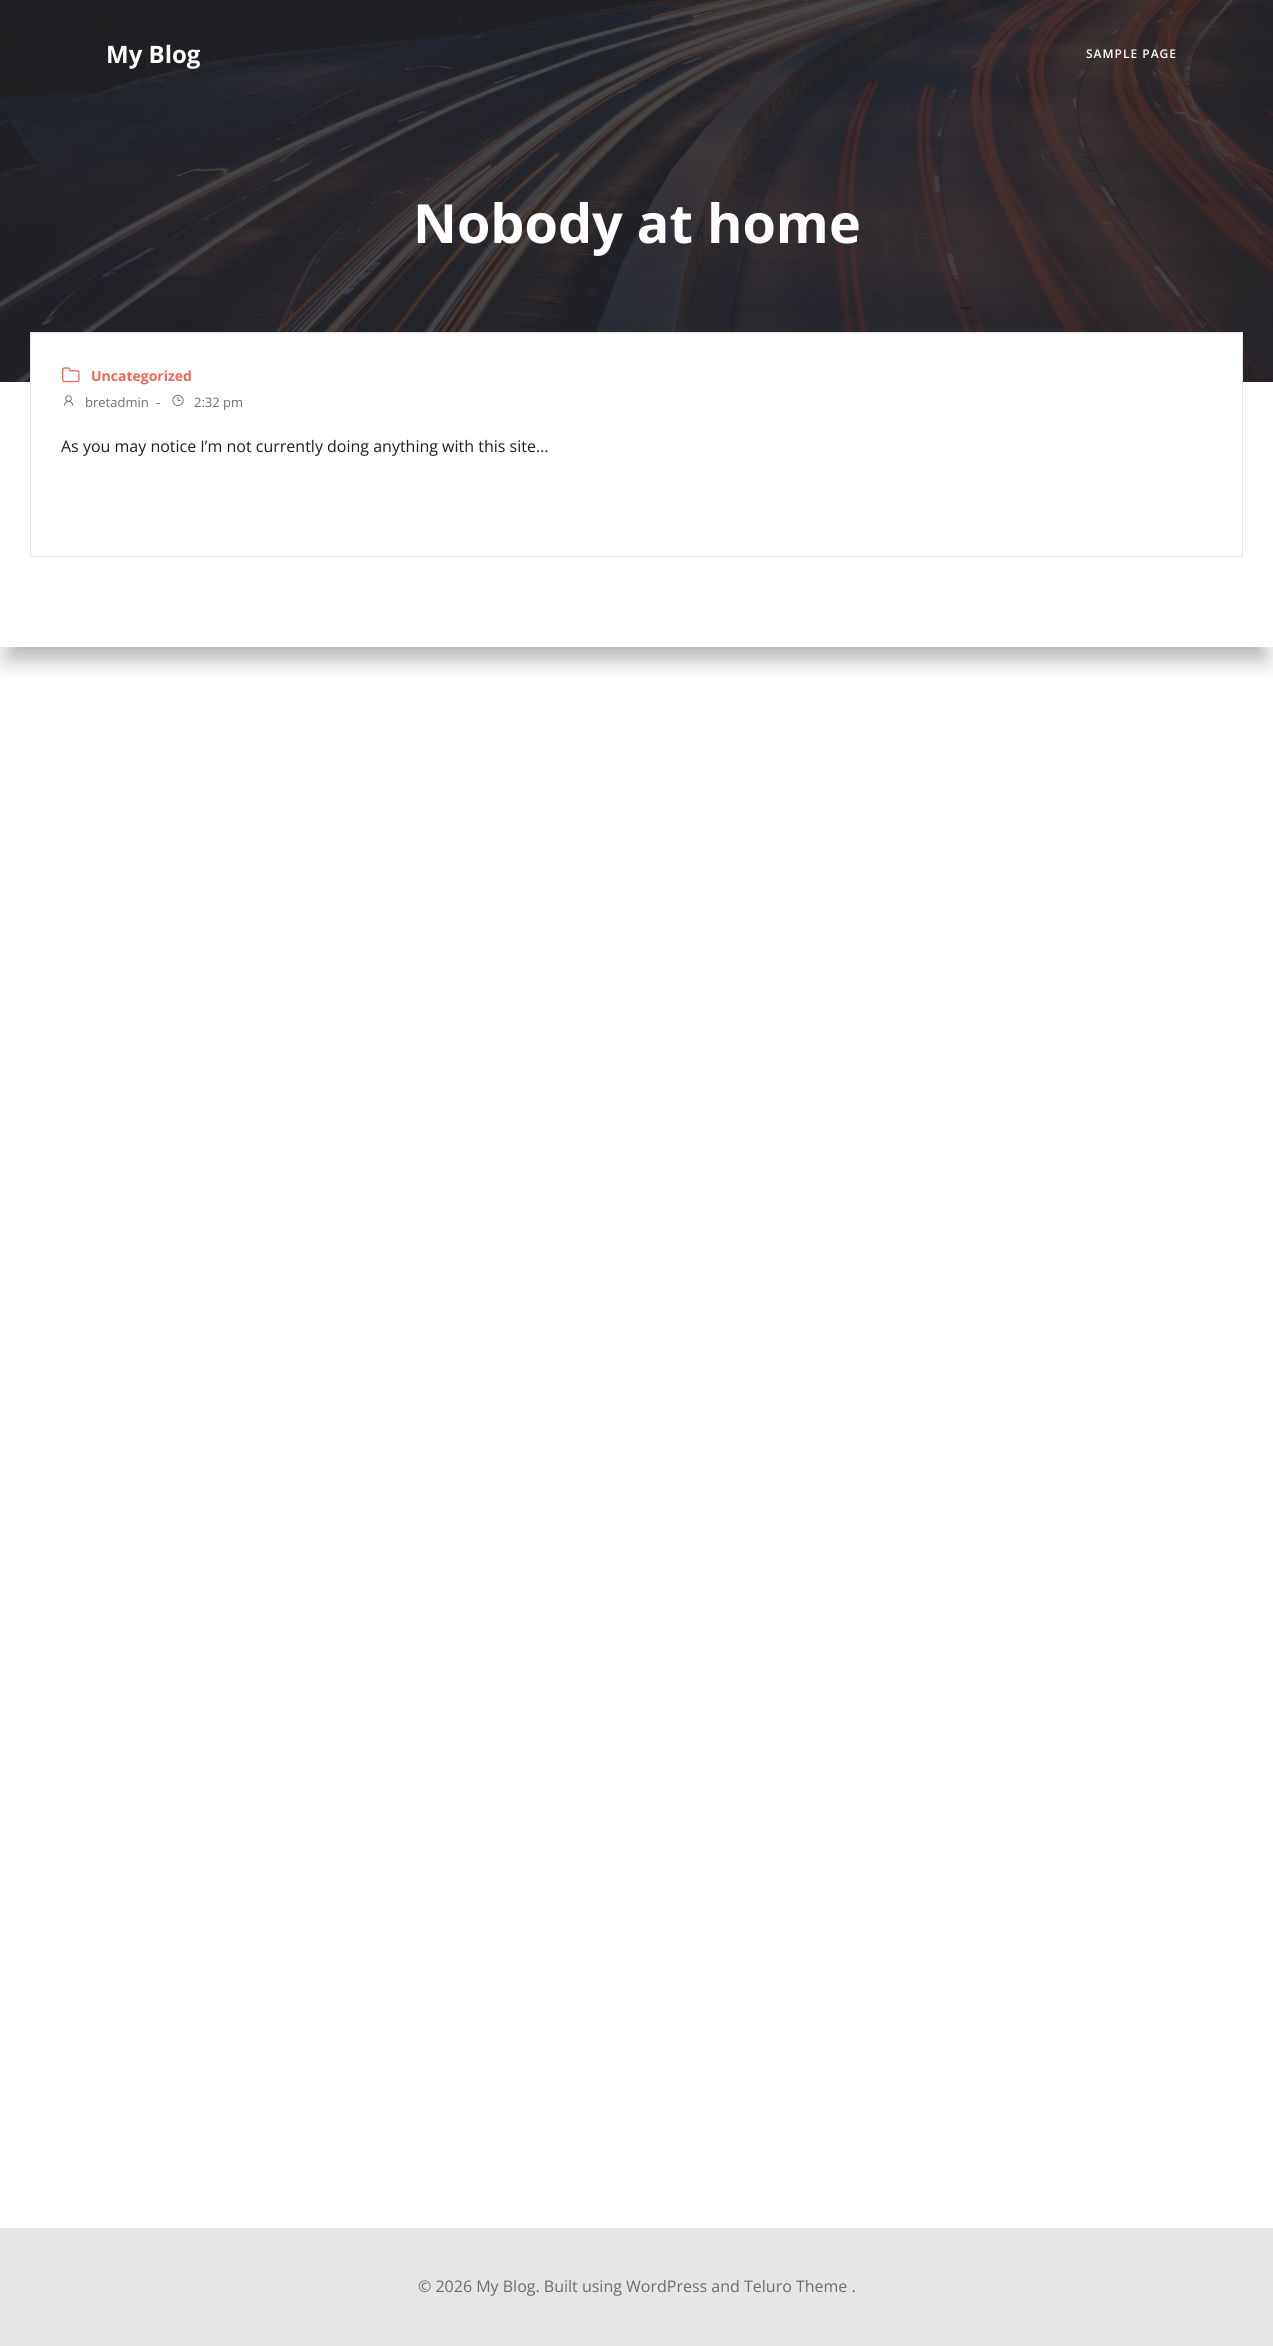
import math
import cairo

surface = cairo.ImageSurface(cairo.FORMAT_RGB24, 1273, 2346)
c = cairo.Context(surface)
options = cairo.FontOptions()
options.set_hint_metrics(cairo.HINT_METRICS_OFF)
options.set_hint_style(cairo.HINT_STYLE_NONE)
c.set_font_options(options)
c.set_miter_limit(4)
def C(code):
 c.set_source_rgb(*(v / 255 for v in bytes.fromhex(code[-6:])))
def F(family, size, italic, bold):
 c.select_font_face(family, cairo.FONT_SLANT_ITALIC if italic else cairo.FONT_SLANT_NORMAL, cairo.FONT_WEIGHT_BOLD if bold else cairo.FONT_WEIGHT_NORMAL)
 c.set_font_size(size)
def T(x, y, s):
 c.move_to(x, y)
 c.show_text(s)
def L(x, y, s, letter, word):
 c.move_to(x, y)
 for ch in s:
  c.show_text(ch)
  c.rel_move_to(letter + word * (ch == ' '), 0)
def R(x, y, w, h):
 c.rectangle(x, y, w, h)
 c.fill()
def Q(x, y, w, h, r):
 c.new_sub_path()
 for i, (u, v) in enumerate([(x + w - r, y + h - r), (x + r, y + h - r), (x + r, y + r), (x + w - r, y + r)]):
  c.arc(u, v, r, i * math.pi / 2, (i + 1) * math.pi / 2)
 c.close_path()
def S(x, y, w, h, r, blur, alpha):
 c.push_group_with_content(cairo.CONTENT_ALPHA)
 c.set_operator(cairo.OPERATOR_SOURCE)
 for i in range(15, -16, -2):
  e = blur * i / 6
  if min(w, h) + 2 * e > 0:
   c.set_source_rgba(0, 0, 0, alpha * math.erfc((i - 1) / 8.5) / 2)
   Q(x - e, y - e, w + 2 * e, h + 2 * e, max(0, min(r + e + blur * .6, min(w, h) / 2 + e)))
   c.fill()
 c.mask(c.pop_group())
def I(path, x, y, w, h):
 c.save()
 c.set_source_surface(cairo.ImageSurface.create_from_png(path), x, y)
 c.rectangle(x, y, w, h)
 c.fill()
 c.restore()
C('ffffff')
c.paint()
I('1.png',0,0,1273,382)
c.save()
c.rectangle(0,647,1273,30)
c.clip()
C('000000')
S(0,402,1273,265,0,15,.08)
c.restore()
c.save()
c.rectangle(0,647,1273,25)
c.clip()
C('313439')
S(10,412,1253,245,0,10,.3)
c.restore()
c.set_source_rgba(0.118,0.122,0.133,0.8)
R(0,0,1273,382)
F('Open Sans',24,0,1)
C('ffffff')
T(106,63,'My Blog')
F('Open Sans SemiBold',12,0,0)
L(1086,58,'SAMPLE PAGE',1,0)
F('Open Sans',54,0,1)
T(413,243,'Nobody at home')
R(31,333,1211,49)
C('e6e6e6')
R(30,332,1213,1)
R(1242,332,1,225)
R(30,332,1,174)
I('2.png',62,367,18,16)
F('Open Sans',14,0,1)
C('f26559')
T(91,381,'Uncategorized')
I('3.png',63,395,11,11)
F('Open Sans',13,0,0)
C('696c77')
T(85,407,'bretadmin')
T(156,407,'-')
I('4.png',172,394,12,13)
T(194,407,'2:32 pm')
F('Open Sans',16,0,0)
C('1e1f22')
T(61,452,'As you may notice I’m not currently doing anything with this site…')
C('e6e6e6')
R(30,556,1213,1)
R(30,506,1,51)
R(0,2228,1273,118)
C('696c77')
T(418,2292,'© 2026 My Blog. Built using WordPress and Teluro Theme .')
surface.write_to_png('o.png')
